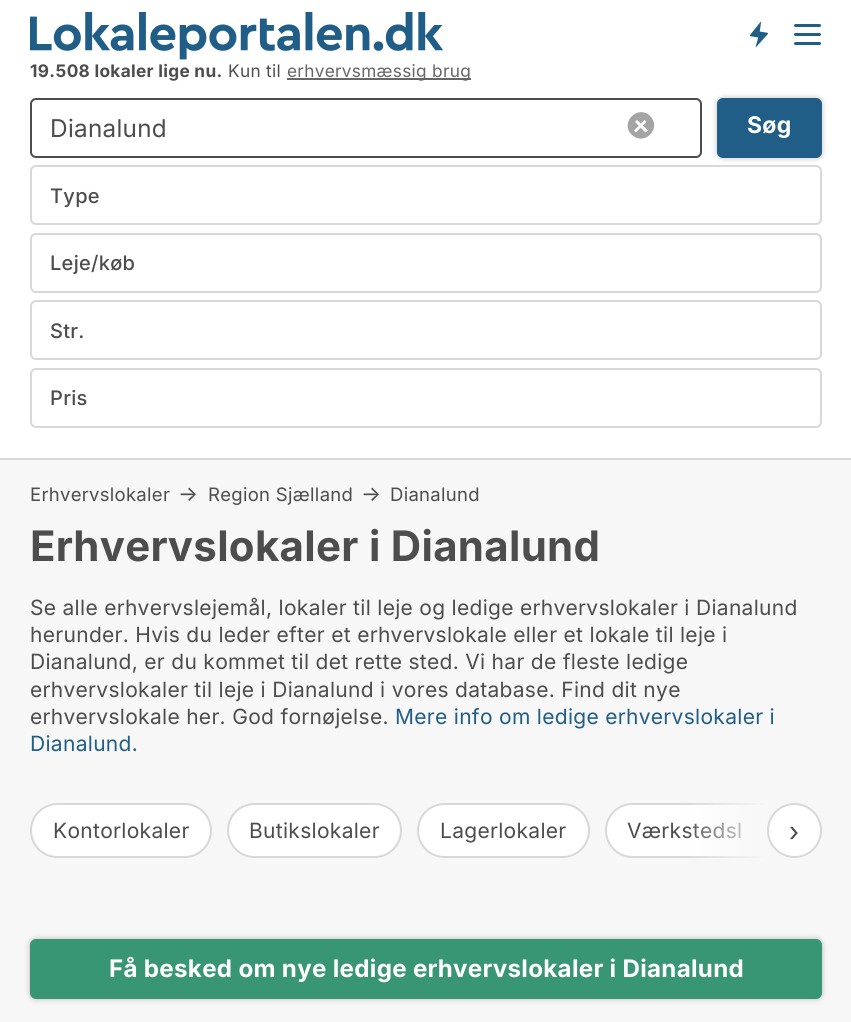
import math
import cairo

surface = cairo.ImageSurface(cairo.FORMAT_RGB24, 851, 1022)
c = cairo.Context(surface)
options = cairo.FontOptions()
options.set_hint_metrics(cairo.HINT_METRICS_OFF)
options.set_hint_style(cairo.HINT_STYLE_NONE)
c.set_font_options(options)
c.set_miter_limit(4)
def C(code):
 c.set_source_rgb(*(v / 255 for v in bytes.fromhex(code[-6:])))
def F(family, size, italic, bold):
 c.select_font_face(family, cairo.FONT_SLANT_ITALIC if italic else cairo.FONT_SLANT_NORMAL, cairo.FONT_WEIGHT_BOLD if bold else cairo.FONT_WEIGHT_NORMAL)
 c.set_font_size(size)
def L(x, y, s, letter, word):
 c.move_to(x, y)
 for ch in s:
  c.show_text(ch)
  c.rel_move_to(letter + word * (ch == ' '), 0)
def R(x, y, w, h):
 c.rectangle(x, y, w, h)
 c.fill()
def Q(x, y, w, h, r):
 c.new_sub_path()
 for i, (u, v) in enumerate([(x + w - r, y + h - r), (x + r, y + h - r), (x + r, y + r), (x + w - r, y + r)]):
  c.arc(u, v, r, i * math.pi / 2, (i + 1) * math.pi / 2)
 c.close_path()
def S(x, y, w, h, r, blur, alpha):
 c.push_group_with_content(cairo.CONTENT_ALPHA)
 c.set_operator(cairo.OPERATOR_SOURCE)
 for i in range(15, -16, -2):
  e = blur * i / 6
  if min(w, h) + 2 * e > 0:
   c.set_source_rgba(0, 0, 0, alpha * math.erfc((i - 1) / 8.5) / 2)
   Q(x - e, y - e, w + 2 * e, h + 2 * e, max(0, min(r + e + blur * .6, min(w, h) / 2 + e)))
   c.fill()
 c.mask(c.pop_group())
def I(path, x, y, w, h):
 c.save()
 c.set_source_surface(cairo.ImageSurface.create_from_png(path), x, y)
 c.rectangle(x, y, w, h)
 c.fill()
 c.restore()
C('ffffff')
c.paint()
I('1.png',30,12,414,48)
I('2.png',749,21,19,26)
C('215e87')
Q(794,24,27,3,1.5)
c.fill()
Q(794,33,27,3,1.5)
c.fill()
Q(794,42,27,3,1.5)
c.fill()
F('Inter',17.25,0,1)
C('4d4d4d')
L(30,77,'19.508 lokaler lige nu.',.3,0)
F('Inter',17.25,0,0)
L(228,77,'Kun til',.3,0)
C('666666')
R(287,78,184,2)
L(287,77,'erhvervsmæssig brug',.3,0)
C('f7f7f7')
R(0,460,851,562)
C('d8d8d8')
R(0,458,851,2)
Q(31,99,670,58,5)
C('4d4d4d')
c.stroke()
F('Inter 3',24.5,0,0)
L(50,137,'Dianalund',.3,0)
C('a4a4a4')
c.new_path()
c.move_to(650,116)
c.curve_to(662.5,128.5,644,147,631.5,134.5)
c.curve_to(619.5,122.5,638,104,650,116)
c.close_path()
c.fill()
C('ffffff')
c.new_path()
c.move_to(637,120)
c.line_to(648,130.5)
c.line_to(645.5,132.5)
c.line_to(635,122)
c.close_path()
c.fill()
c.new_path()
c.move_to(644.5,120)
c.line_to(646.5,122)
c.line_to(636,132.5)
c.line_to(634,130.5)
c.close_path()
c.fill()
C('000000')
S(717,98,105,60,6,3,.25)
C('215e87')
Q(717,98,105,60,6)
c.fill()
F('Inter',23,0,1)
C('ffffff')
L(747,133,'Søg',.3,0)
Q(31,166,790,58,5)
C('d8d8d8')
c.stroke()
F('Inter Medium',20,0,0)
C('4d4d4d')
L(50,203,'Type',.3,0)
Q(31,234,790,58,5)
C('d8d8d8')
c.stroke()
C('4d4d4d')
L(50,270,'Leje/køb',.3,0)
Q(31,301,790,58,5)
C('d8d8d8')
c.stroke()
C('4d4d4d')
L(50,338,'Str.',.3,0)
Q(31,369,790,58,5)
C('d8d8d8')
c.stroke()
C('4d4d4d')
L(50,405,'Pris',.3,0)
F('Inter',18.5,0,0)
L(30,501,'Erhvervslokaler',.3,0)
F('Inter',21,0,0)
L(178,501,'→',.3,0)
F('Inter',18.5,0,0)
L(208,501,'Region Sjælland',.3,0)
F('Inter',21,0,0)
L(361,501,'→',.3,0)
F('Inter',18.5,0,0)
L(390,501,'Dianalund',.3,0)
F('Inter',42,0,1)
L(30,561,'Erhvervslokaler i Dianalund',.3,0)
F('Inter',21,0,0)
L(30,615,'Se alle erhvervslejemål, lokaler til leje og ledige erhvervslokaler i Dianalund',.3,0)
L(30,642,'herunder. Hvis du leder efter et erhvervslokale eller et lokale til leje i',.3,0)
L(30,669,'Dianalund, er du kommet til det rette sted. Vi har de fleste ledige',.3,0)
L(30,697,'erhvervslokaler til leje i Dianalund i vores database. Find dit nye',.3,0)
L(30,724,'erhvervslokale her. God fornøjelse.',.3,0)
C('215e87')
L(395,724,'Mere info om ledige erhvervslokaler i',.3,0)
L(30,751,'Dianalund.',.3,0)
C('ffffff')
Q(31,804,180,53,26.5)
c.fill_preserve()
C('d8d8d8')
c.stroke()
C('4d4d4d')
L(53,838,'Kontorlokaler',.3,0)
C('ffffff')
Q(228,804,173,53,26.5)
c.fill_preserve()
C('d8d8d8')
c.stroke()
C('4d4d4d')
L(249,838,'Butikslokaler',.3,0)
C('ffffff')
Q(418,804,171,53,26.5)
c.fill_preserve()
C('d8d8d8')
c.stroke()
C('4d4d4d')
L(440,838,'Lagerlokaler',.3,0)
c.save()
c.rectangle(30,803,792,55)
c.clip()
C('ffffff')
Q(606,804,221,53,26.5)
c.fill_preserve()
C('d8d8d8')
c.stroke()
c.restore()
L(627,838,'Værkstedsl',.3,0)
C('f7f7f7')
R(767,803,55,55)
gradient = cairo.LinearGradient(684,830,768,830)
gradient.add_color_stop_rgba(0,0.969,0.969,0.969,0)
gradient.add_color_stop_rgba(1,0.969,0.969,0.969,1)
c.set_source(gradient)
R(686,803,81,55)
C('ffffff')
c.new_path()
c.arc(794.5,830.5,26.5,0,2 * math.pi)
c.fill_preserve()
C('d8d8d8')
c.stroke()
F('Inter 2',27,0,0)
C('4d4d4d')
L(789,841,'›',.3,0)
C('000000')
S(30,939,792,60,6,3,.25)
C('399674')
Q(30,939,792,60,6)
c.fill()
F('Inter',24.15,0,1)
C('ffffff')
L(109,977,'Få besked om nye ledige erhvervslokaler i Dianalund',.3,0)
surface.write_to_png('o.png')
